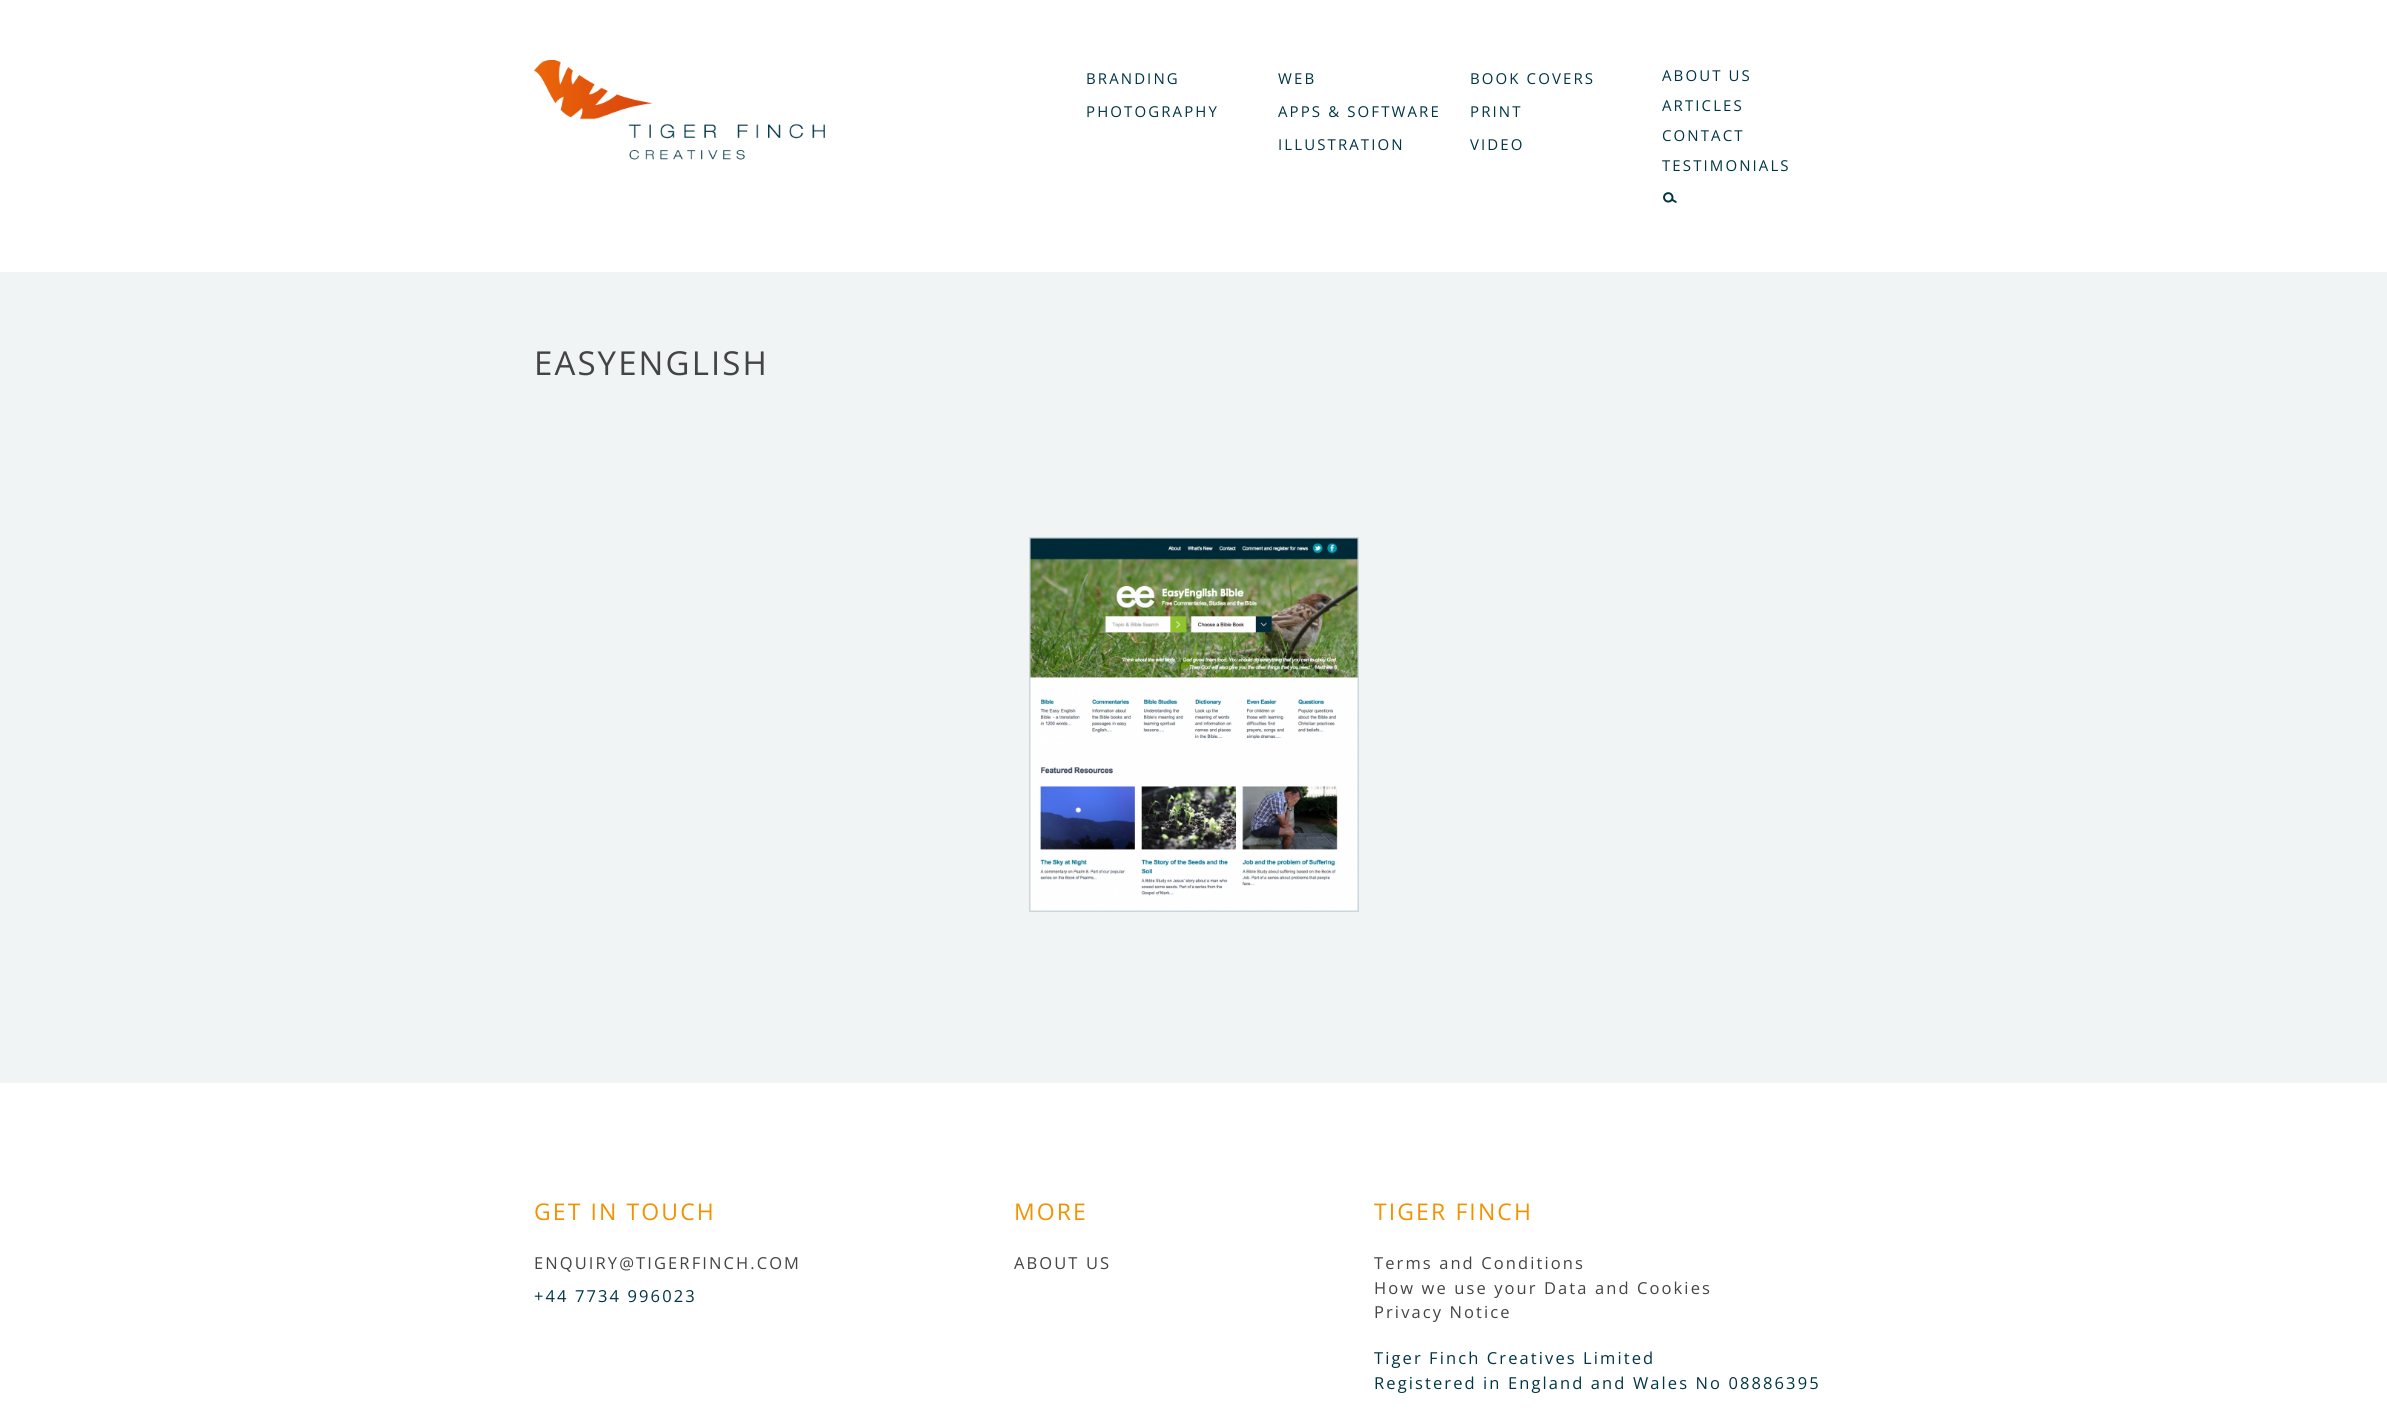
import math
import cairo

surface = cairo.ImageSurface(cairo.FORMAT_RGB24, 2387, 1410)
c = cairo.Context(surface)
options = cairo.FontOptions()
options.set_hint_metrics(cairo.HINT_METRICS_OFF)
options.set_hint_style(cairo.HINT_STYLE_NONE)
c.set_font_options(options)
c.set_miter_limit(4)
def C(code):
 c.set_source_rgb(*(v / 255 for v in bytes.fromhex(code[-6:])))
def F(family, size, italic, bold):
 c.select_font_face(family, cairo.FONT_SLANT_ITALIC if italic else cairo.FONT_SLANT_NORMAL, cairo.FONT_WEIGHT_BOLD if bold else cairo.FONT_WEIGHT_NORMAL)
 c.set_font_size(size)
def L(x, y, s, letter, word):
 c.move_to(x, y)
 for ch in s:
  c.show_text(ch)
  c.rel_move_to(letter + word * (ch == ' '), 0)
def R(x, y, w, h):
 c.rectangle(x, y, w, h)
 c.fill()
def I(path, x, y, w, h):
 c.save()
 c.set_source_surface(cairo.ImageSurface.create_from_png(path), x, y)
 c.rectangle(x, y, w, h)
 c.fill()
 c.restore()
C('ffffff')
c.paint()
I('1.png',534,60,291,100)
F('Open Sans',15,0,0)
C('003545')
L(1086,84,'BRANDING',2.1,0)
L(1278,84,'WEB',2.1,0)
L(1470,84,'BOOK COVERS',2.1,0)
L(1086,117,'PHOTOGRAPHY',2.1,0)
L(1278,117,'APPS & SOFTWARE',2.1,0)
L(1470,117,'PRINT',2.1,0)
L(1278,150,'ILLUSTRATION',2.1,0)
L(1470,150,'VIDEO',2.1,0)
L(1662,81,'ABOUT US',2.1,0)
L(1662,111,'ARTICLES',2.1,0)
L(1662,141,'CONTACT',2.1,0)
L(1662,171,'TESTIMONIALS',2.1,0)
I('2.png',1663,192,14,11)
C('f1f4f5')
R(0,272,2387,811)
F('Open Sans',33,0,0)
C('444444')
L(534,375,'EASYENGLISH',2.1,0)
c.rectangle(1030,538,328,373)
C('ccd7db')
c.stroke()
I('3.png',1030,538,328,373)
F('Open Sans',23,0,0)
C('f39200')
L(534,1220,'GET IN TOUCH',2.1,0)
F('Open Sans',16.5,0,0)
C('444444')
L(534,1269,'ENQUIRY@TIGERFINCH.COM',2.1,0)
C('003545')
L(534,1302,'+44 7734 996023',2.1,0)
F('Open Sans',23,0,0)
C('f39200')
L(1014,1220,'MORE',2.1,0)
F('Open Sans',16.5,0,0)
C('444444')
L(1014,1269,'ABOUT US',2.1,0)
F('Open Sans',23,0,0)
C('f39200')
L(1374,1220,'TIGER FINCH',2.1,0)
F('Open Sans',16.5,0,0)
C('444444')
L(1374,1269,'Terms and Conditions',2.1,0)
L(1374,1294,'How we use your Data and Cookies',2.1,0)
L(1374,1318,'Privacy Notice',2.1,0)
C('003545')
L(1374,1364,'Tiger Finch Creatives Limited',2.1,0)
L(1374,1389,'Registered in England and Wales No 08886395',2.1,0)
surface.write_to_png('o.png')
